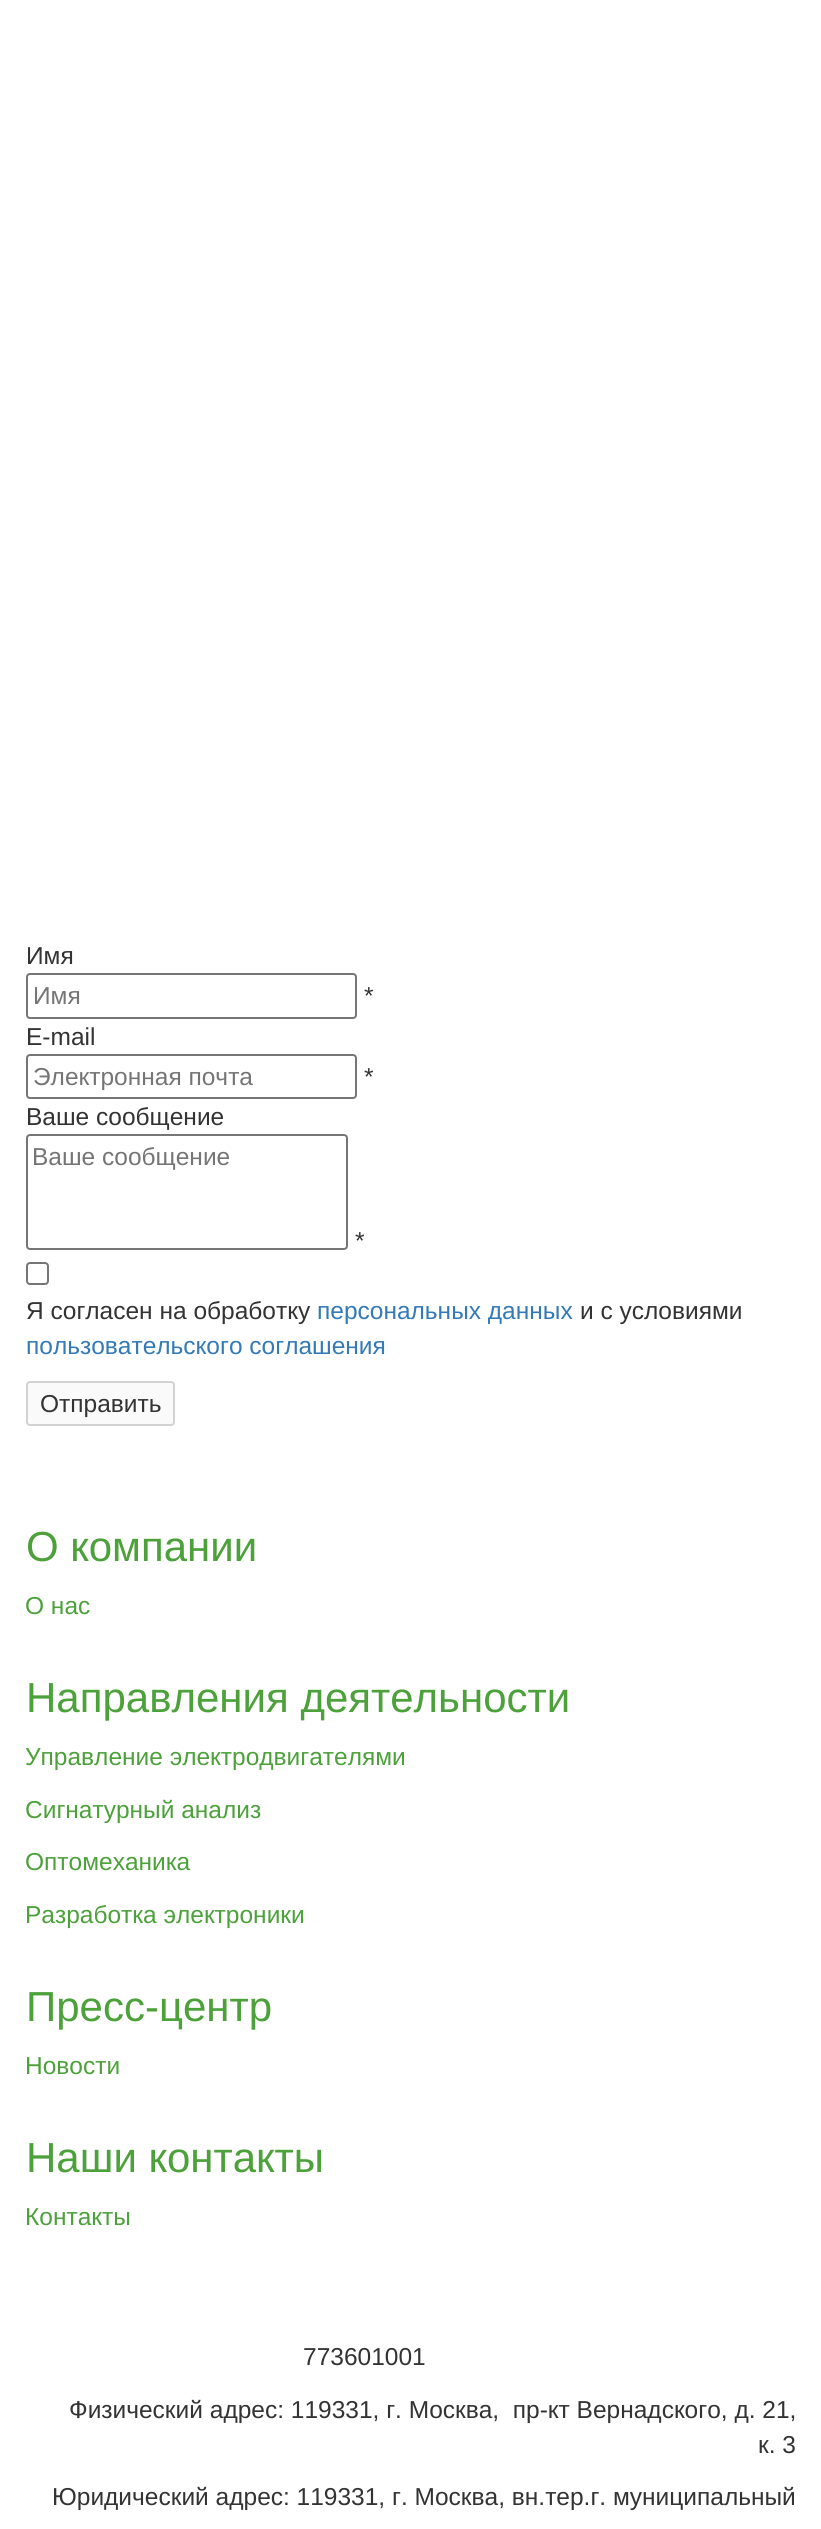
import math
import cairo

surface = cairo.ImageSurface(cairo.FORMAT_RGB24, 821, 2529)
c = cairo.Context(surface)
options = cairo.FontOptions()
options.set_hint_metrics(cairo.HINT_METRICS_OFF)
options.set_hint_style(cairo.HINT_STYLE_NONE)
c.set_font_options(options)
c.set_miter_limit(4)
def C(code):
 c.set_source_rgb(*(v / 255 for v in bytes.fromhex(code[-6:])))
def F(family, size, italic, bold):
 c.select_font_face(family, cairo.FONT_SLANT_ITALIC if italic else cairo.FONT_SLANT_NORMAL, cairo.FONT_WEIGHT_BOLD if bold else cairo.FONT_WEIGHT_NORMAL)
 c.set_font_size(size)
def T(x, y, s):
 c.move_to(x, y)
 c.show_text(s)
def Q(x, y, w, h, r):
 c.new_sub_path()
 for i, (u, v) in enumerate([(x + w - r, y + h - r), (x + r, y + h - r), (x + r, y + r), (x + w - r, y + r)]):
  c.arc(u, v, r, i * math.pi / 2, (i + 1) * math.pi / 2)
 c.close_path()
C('ffffff')
c.paint()
F('Liberation Sans',24.5,0,0)
C('333333')
T(26,964,'Имя')
Q(27,974,329,44,3)
C('767676')
c.stroke()
C('757575')
T(33,1004,'Имя')
C('333333')
T(364,1004,'*')
T(26,1045,'E-mail')
Q(27,1055,329,43,3)
C('767676')
c.stroke()
C('757575')
T(33,1085,'Электронная почта')
C('333333')
T(364,1085,'*')
T(26,1125,'Ваше сообщение')
Q(27,1135,320,114,3)
C('767676')
c.stroke()
C('757575')
T(32,1165,'Ваше сообщение')
C('333333')
T(355,1249,'*')
Q(27,1263,21,21,3)
C('767676')
c.stroke()
C('333333')
T(26,1319,'Я согласен на обработку')
C('337ab7')
T(317,1319,'персональных данных')
C('333333')
T(580,1319,'и с условиями')
C('337ab7')
T(26,1354,'пользовательского соглашения')
C('fafafa')
Q(27,1382,147,43,3)
c.fill_preserve()
C('d2d2d2')
c.stroke()
C('333333')
T(40,1412,'Отправить')
F('Liberation Sans',42,0,0)
C('4ca13b')
T(26,1561,'О компании')
F('Liberation Sans',24.5,0,0)
T(25,1614,'О нас')
F('Liberation Sans',42,0,0)
T(26,1712,'Направления деятельности')
F('Liberation Sans',24.5,0,0)
T(25,1765,'Управление электродвигателями')
T(25,1818,'Сигнатурный анализ')
T(25,1870,'Оптомеханика')
T(25,1923,'Разработка электроники')
F('Liberation Sans',42,0,0)
T(26,2021,'Пресс-центр')
F('Liberation Sans',24.5,0,0)
T(25,2074,'Новости')
F('Liberation Sans',42,0,0)
T(26,2172,'Наши контакты')
F('Liberation Sans',24.5,0,0)
T(25,2225,'Контакты')
C('333333')
T(303,2365,'773601001')
T(69,2418,'Физический адрес: 119331, г. Москва,  пр-кт Вернадского, д. 21,')
T(758,2453,'к. 3')
T(52,2505,'Юридический адрес: 119331, г. Москва, вн.тер.г. муниципальный')
surface.write_to_png('o.png')
